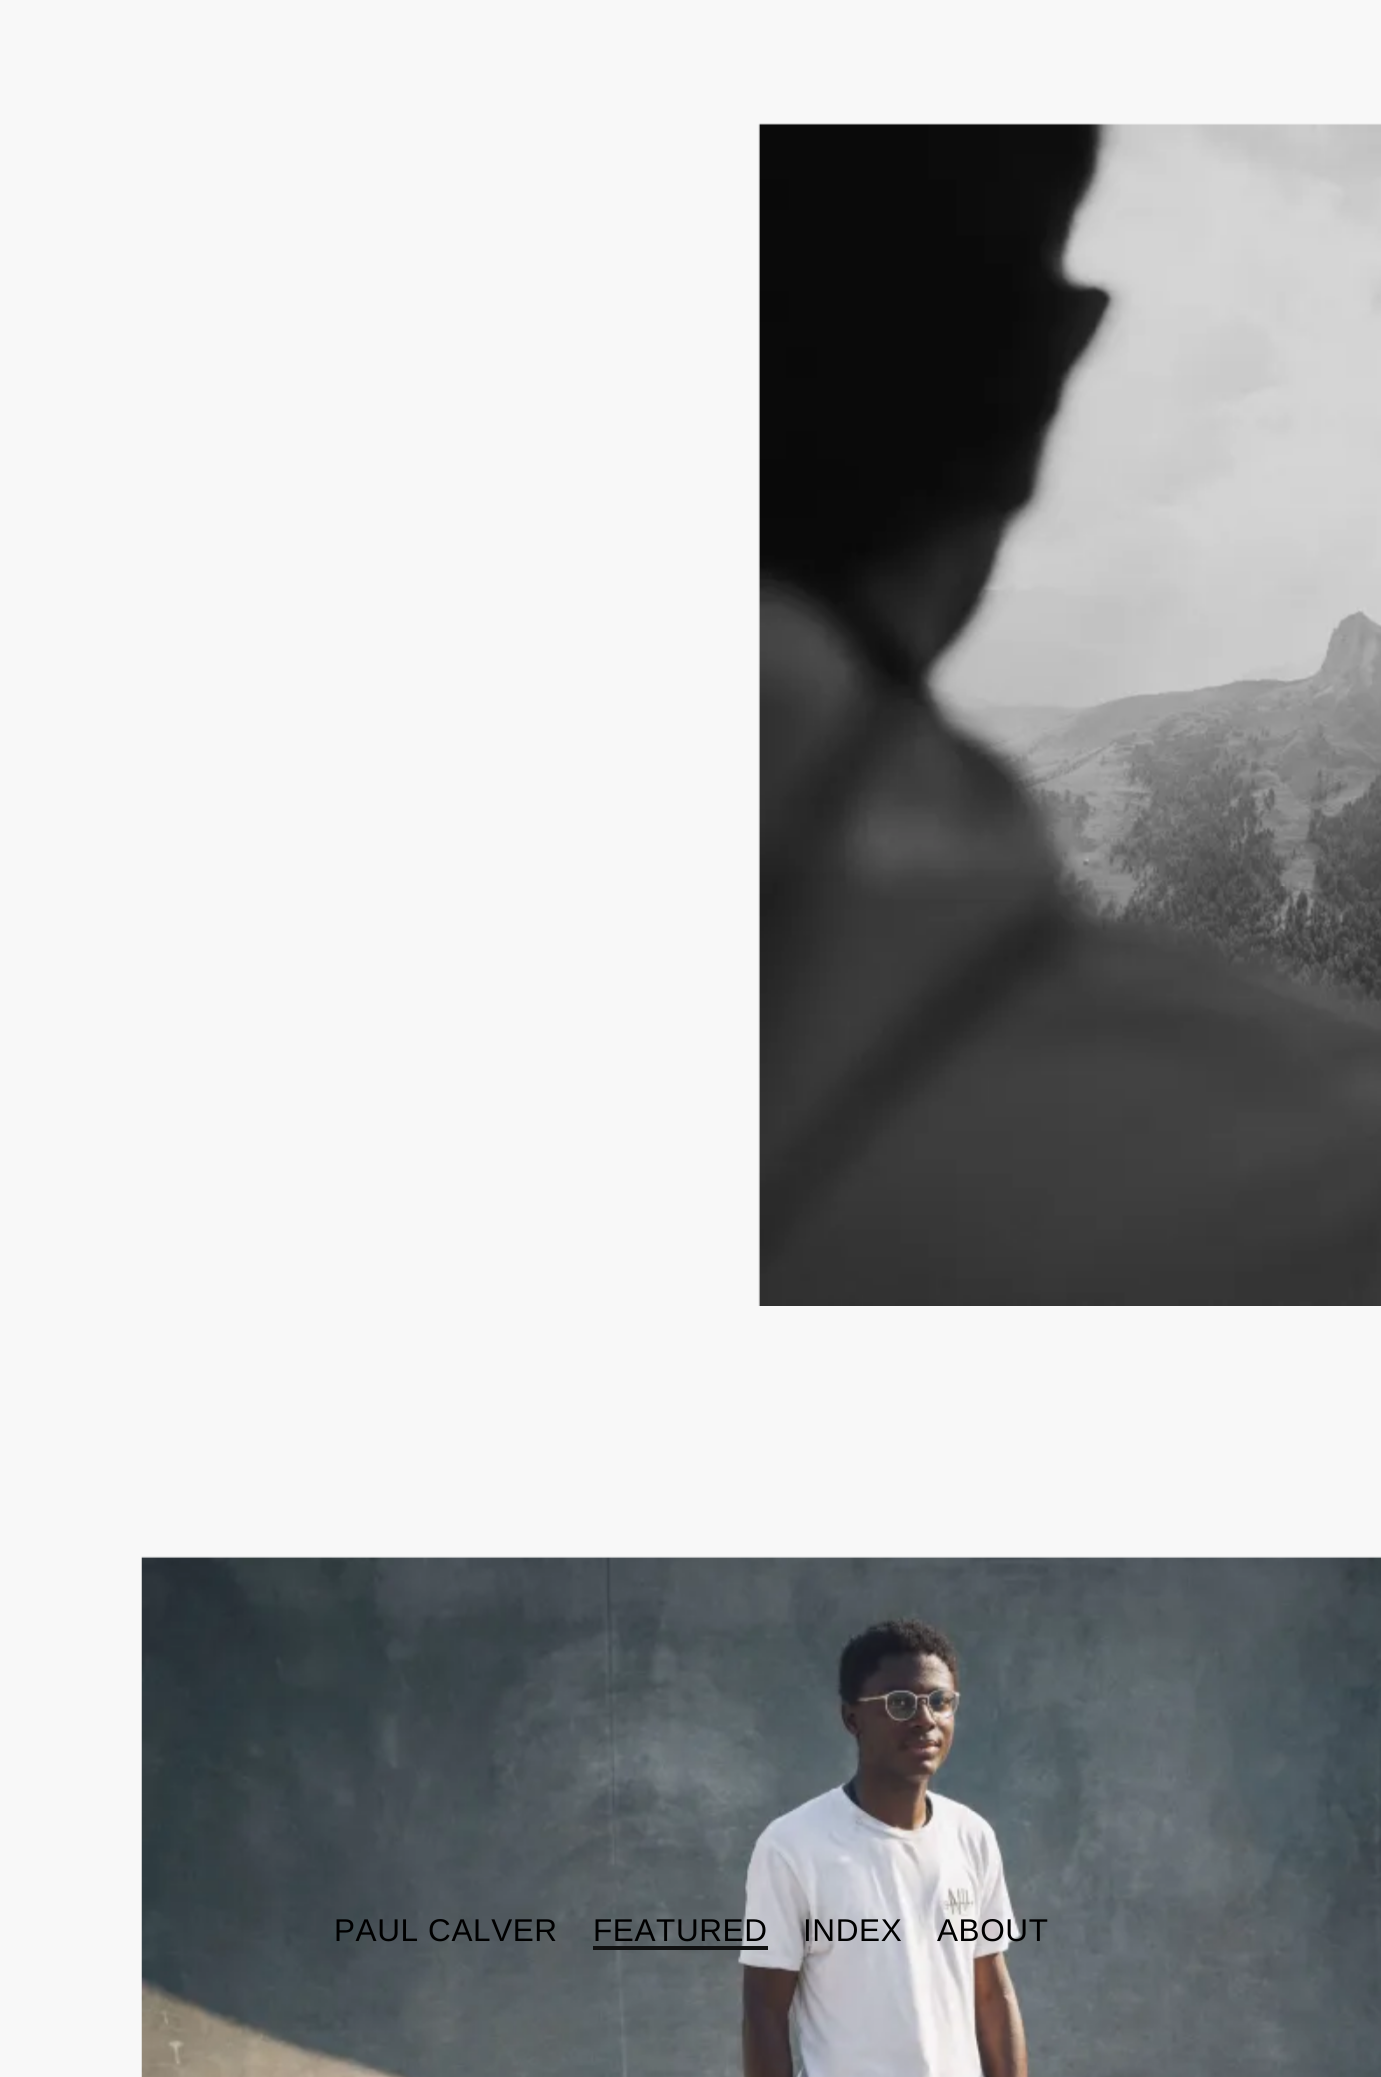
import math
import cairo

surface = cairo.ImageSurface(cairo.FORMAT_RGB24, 1381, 2077)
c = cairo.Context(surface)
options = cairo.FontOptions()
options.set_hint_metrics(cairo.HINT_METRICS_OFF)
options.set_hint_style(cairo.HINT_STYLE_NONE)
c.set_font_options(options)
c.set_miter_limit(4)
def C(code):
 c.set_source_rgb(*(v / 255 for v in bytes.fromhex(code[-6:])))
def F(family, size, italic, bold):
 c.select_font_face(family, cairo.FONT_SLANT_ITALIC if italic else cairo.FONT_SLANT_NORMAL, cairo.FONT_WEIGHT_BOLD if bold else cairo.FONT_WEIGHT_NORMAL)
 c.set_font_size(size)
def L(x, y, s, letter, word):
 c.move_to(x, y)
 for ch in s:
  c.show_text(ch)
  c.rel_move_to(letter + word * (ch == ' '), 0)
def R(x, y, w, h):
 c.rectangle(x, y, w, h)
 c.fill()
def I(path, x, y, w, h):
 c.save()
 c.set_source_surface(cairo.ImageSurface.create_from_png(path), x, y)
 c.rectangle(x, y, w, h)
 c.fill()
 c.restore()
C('f8f8f8')
c.paint()
I('1.png',758,123,623,1183)
I('2.png',141,1556,1240,521)
F('Liberation Sans',31.5,0,0)
C('000000')
L(334,1941,'PAUL CALVER',.6,0)
L(593,1941,'FEATURED',.6,0)
C('111111')
R(593,1946,175,4)
C('000000')
L(803,1941,'INDEX',.6,0)
L(937,1941,'ABOUT',.6,0)
surface.write_to_png('o.png')
